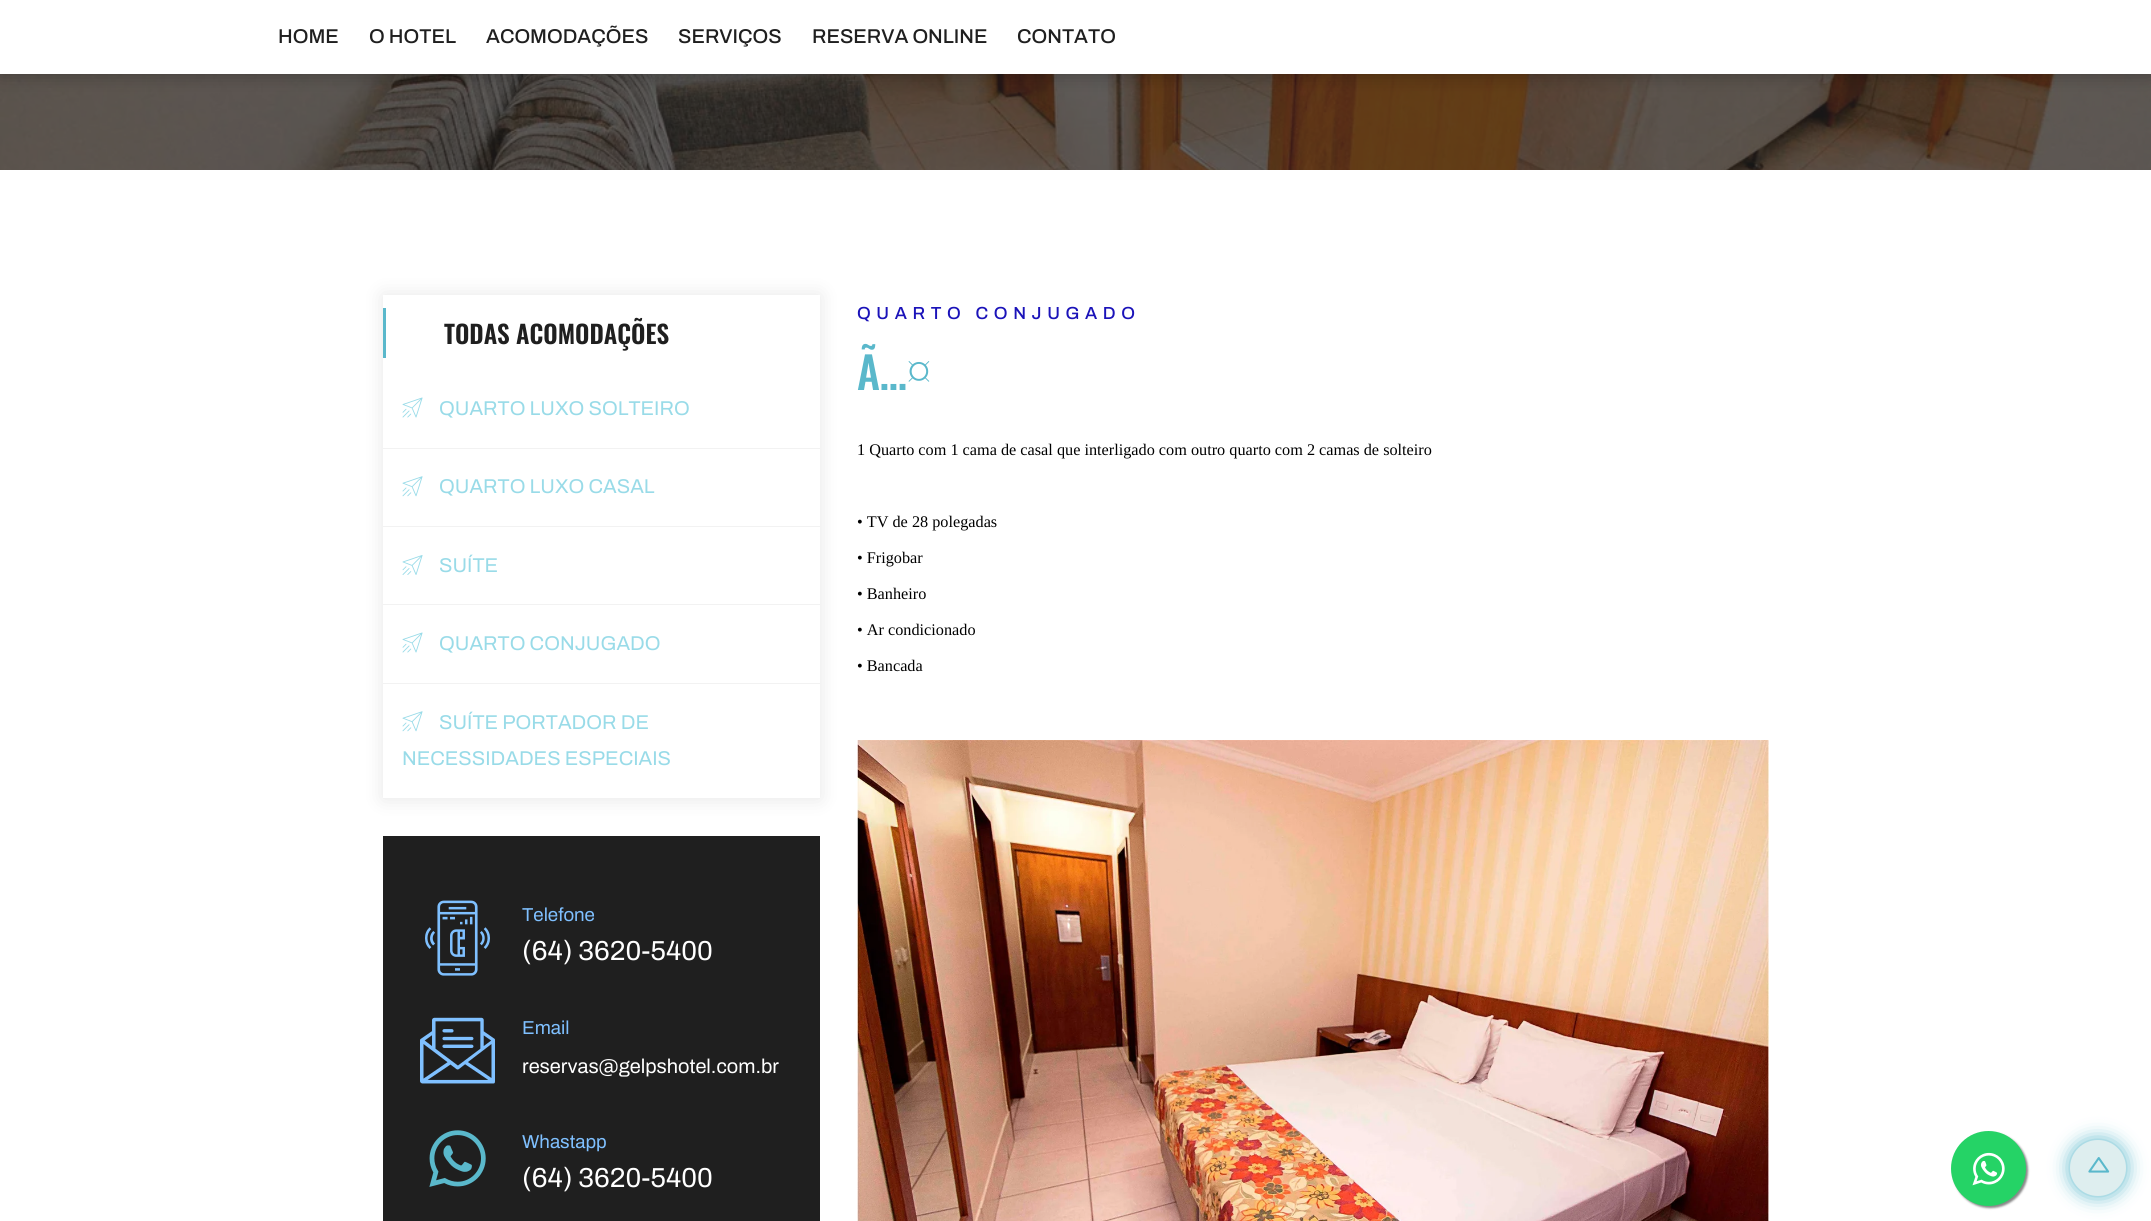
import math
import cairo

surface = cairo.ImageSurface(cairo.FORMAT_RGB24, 2151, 1221)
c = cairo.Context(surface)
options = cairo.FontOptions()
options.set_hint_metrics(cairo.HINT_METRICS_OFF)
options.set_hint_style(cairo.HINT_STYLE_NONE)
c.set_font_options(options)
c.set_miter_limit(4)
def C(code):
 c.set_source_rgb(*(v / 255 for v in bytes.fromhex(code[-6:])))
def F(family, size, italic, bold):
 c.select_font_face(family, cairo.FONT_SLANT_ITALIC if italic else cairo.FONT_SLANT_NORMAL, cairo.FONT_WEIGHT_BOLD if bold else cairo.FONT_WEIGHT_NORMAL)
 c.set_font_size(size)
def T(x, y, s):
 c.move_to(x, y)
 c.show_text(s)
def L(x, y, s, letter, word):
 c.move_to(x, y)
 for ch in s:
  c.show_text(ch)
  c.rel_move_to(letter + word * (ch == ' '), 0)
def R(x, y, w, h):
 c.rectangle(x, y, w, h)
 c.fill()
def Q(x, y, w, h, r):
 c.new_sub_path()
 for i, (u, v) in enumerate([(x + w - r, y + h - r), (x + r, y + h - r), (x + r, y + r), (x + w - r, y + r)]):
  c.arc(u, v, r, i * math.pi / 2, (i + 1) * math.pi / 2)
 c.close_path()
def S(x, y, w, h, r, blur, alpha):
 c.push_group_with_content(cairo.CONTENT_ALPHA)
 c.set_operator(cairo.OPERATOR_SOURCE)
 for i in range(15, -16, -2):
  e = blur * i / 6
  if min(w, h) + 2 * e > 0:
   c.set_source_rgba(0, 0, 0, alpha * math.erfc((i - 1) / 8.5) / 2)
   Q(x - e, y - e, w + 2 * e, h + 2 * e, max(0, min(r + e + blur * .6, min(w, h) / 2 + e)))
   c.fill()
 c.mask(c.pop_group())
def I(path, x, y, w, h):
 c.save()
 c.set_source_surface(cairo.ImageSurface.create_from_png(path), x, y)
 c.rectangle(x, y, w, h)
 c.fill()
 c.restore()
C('ffffff')
c.paint()
I('1.png',0,74,2151,96)
C('000000')
S(0,0,2151,74,0,9.5,.3)
C('ffffff')
R(0,0,2151,74)
F('Archivo Medium',20,0,0)
C('1f1f1f')
T(278,43,'HOME')
T(369,43,'O HOTEL')
T(486,43,'ACOMODAÇÕES')
T(678,43,'SERVIÇOS')
T(812,43,'RESERVA ONLINE')
T(1017,43,'CONTATO')
C('000000')
S(383,295,437,504,0,9.5,.1)
C('ffffff')
R(383,295,437,503)
C('5ab8cb')
R(383,308,3,50)
F('Oswald SemiBold',25,0,0)
C('1f1f1f')
T(444,344,'TODAS ACOMODAÇÕES')
C('f2f2f2')
R(383,448,437,1)
I('2.png',402,397,21,21)
F('Archivo',20,0,0)
C('99dbe8')
T(439,415,'QUARTO LUXO SOLTEIRO')
C('f2f2f2')
R(383,526,437,1)
I('3.png',402,476,21,21)
C('99dbe8')
T(439,493,'QUARTO LUXO CASAL')
C('f2f2f2')
R(383,604,437,1)
I('4.png',402,555,21,20)
C('99dbe8')
T(439,572,'SUÍTE')
C('f2f2f2')
R(383,683,437,1)
I('2.png',402,632,21,21)
C('99dbe8')
T(439,650,'QUARTO CONJUGADO')
C('f2f2f2')
R(383,798,437,1)
I('3.png',402,711,21,21)
C('99dbe8')
T(439,729,'SUÍTE PORTADOR DE')
T(402,765,'NECESSIDADES ESPECIAIS')
C('1f1f1f')
R(383,836,437,385)
I('5.png',425,900,65,76)
F('Archivo',18.75,0,0)
C('7fc0ff')
T(522,921,'Telefone')
F('Archivo',27.5,0,0)
C('ffffff')
T(522,960,'(64) 3620-5400')
I('6.png',420,1017,75,67)
F('Archivo',18.75,0,0)
C('7fc0ff')
T(522,1034,'Email')
F('Archivo',20,0,0)
C('ffffff')
T(522,1073,'reservas@gelpshotel.com.br')
I('7.png',429,1130,57,57)
F('Archivo',18.75,0,0)
C('7fc0ff')
T(522,1148,'Whastapp')
F('Archivo',27.5,0,0)
C('ffffff')
T(522,1187,'(64) 3620-5400')
F('Archivo Medium',17.5,0,0)
C('1b13b9')
L(857,319,'QUARTO CONJUGADO',5.6,0)
F('Oswald Medium',44,0,0)
C('5ab8cb')
T(857,390,'Ã…¤')
F('Liberation Serif',16.25,0,0)
C('000000')
T(857,455,'1 Quarto com 1 cama de casal que interligado com outro quarto com 2 camas de solteiro')
T(857,527,'• TV de 28 polegadas')
T(857,563,'• Frigobar')
T(857,599,'• Banheiro')
T(857,635,'• Ar condicionado')
T(857,671,'• Bancada')
I('8.png',857,740,912,481)
C('888888')
S(1953,1133,75,75,37.5,1,1)
C('25d366')
c.arc(1988.5,1168.5,37.5,0,2 * math.pi)
c.fill()
I('9.png',1972,1152,33,34)
C('5ab8cb')
S(2070,1140,56,56,28,9.5,1)
C('deeeef')
c.arc(2098,1168,28,0,2 * math.pi)
c.fill()
I('10.png',2088,1157,22,16)
surface.write_to_png('o.png')
